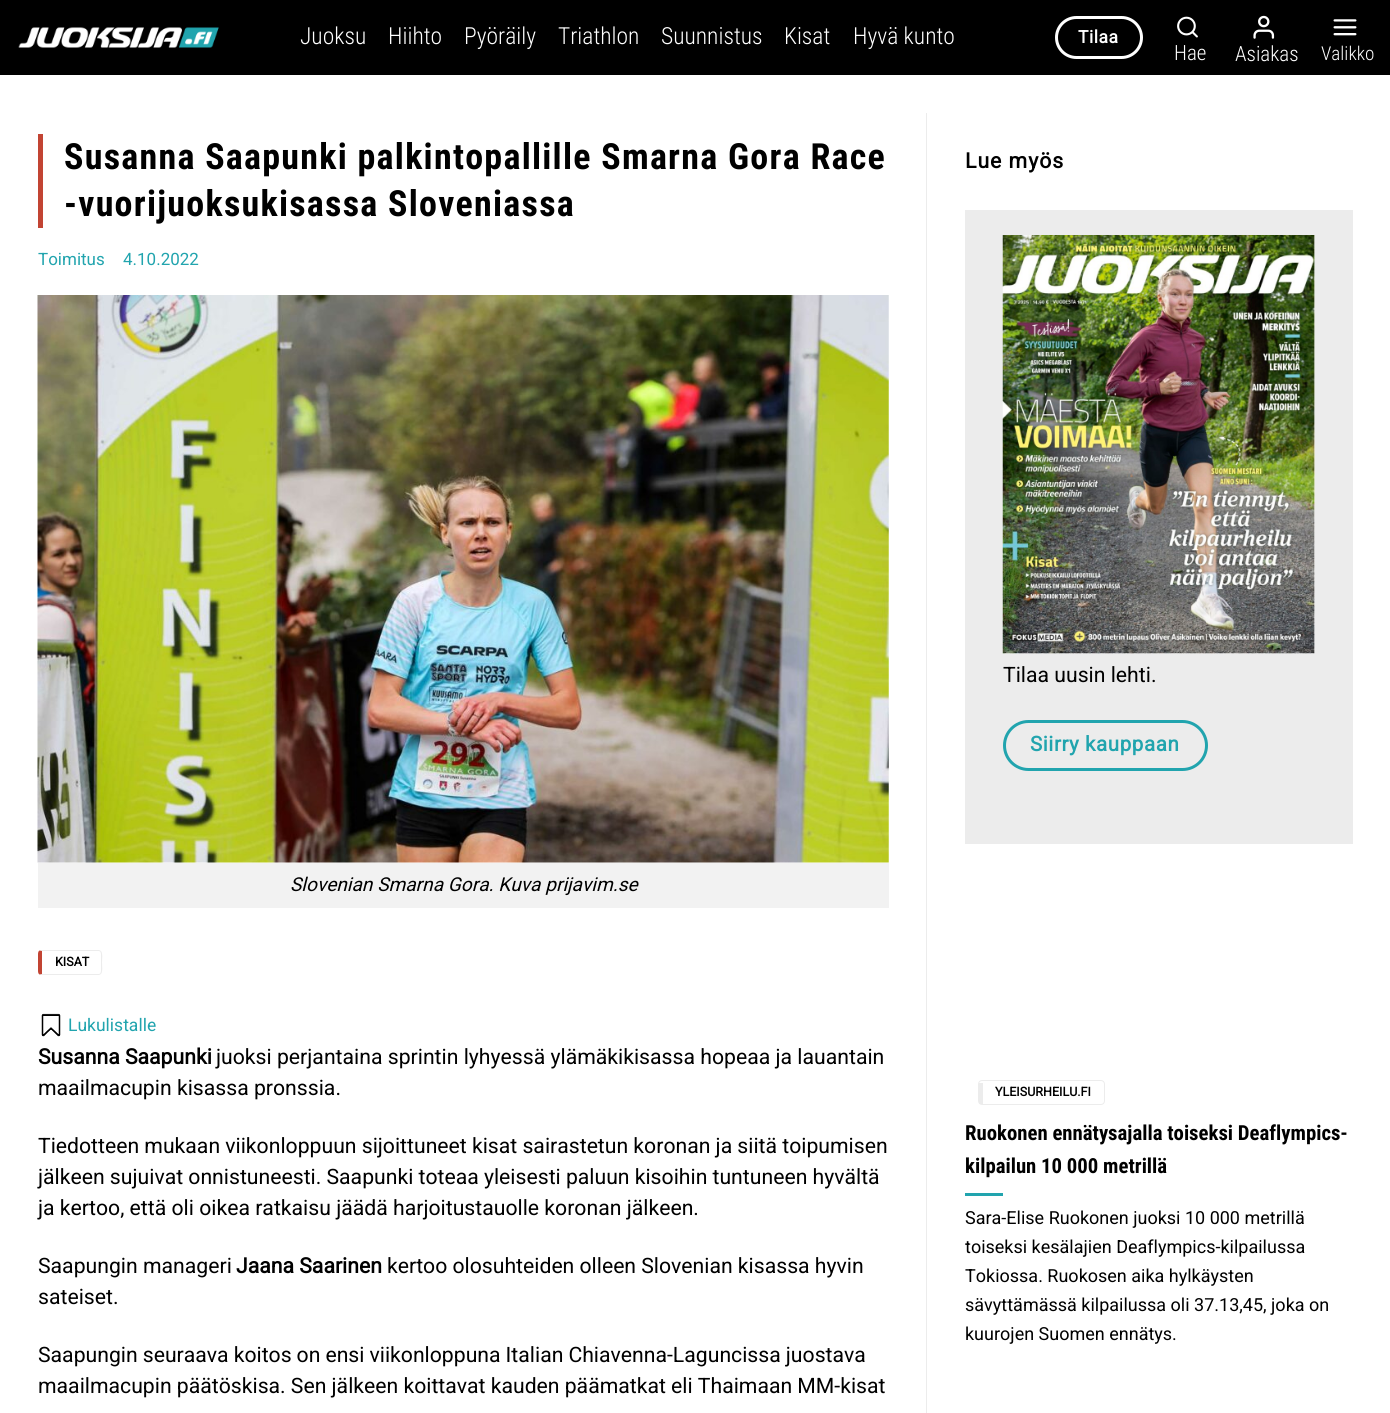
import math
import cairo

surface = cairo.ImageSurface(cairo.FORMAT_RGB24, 1390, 1413)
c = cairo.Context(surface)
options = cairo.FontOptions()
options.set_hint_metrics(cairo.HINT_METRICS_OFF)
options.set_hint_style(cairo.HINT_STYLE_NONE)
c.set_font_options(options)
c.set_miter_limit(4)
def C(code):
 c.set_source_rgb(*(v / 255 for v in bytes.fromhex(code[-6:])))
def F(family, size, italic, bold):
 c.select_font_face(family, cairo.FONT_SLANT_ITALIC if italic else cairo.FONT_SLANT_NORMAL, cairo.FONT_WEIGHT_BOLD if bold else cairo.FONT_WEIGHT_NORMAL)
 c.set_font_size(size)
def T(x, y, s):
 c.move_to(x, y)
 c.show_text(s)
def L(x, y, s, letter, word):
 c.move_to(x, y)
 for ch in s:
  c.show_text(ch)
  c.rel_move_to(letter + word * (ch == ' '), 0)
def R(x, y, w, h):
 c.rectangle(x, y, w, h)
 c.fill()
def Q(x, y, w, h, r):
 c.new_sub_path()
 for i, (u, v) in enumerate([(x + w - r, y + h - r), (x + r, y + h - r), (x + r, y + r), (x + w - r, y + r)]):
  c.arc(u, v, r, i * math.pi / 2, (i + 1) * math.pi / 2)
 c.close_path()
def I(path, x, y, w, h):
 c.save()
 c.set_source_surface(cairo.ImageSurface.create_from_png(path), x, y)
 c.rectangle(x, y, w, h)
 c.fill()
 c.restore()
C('ffffff')
c.paint()
C('000000')
R(0,0,1390,75)
I('1.png',18,27,201,21)
F('Roboto Condensed Light',23.5,0,0)
C('ffffff')
T(300,44,'Juoksu')
T(388,44,'Hiihto')
T(464,44,'Pyöräily')
T(558,44,'Triathlon')
T(661,44,'Suunnistus')
T(784,44,'Kisat')
T(853,44,'Hyvä kunto')
Q(1056.5,17.5,85,40,20)
c.set_line_width(3)
c.stroke()
F('Roboto',17.5,0,1)
L(1078,43,'Tilaa',.5,0)
I('2.png',1177,16,21,22)
F('Roboto Condensed Light',21,0,0)
T(1174,60,'Hae')
I('3.png',1253,15,22,24)
T(1235,61,'Asiakas')
I('4.png',1333,19,24,17)
F('Roboto Condensed Light',19.1,0,0)
T(1321,60,'Valikko')
C('c24433')
R(38,134,5,94)
F('Roboto Condensed',36,0,1)
C('000000')
L(64,169,'Susanna Saapunki palkintopallille Smarna Gora Race',1.25,0)
L(64,216,'-vuorijuoksukisassa Sloveniassa',1.25,0)
F('Roboto',17,0,0)
C('21a4ae')
T(38,265,'Toimitus')
T(123,265,'4.10.2022')
I('5.png',37,295,852,568)
C('f2f2f2')
R(38,863,851,45)
F('Roboto',19.1,1,0)
C('000000')
T(290,891,'Slovenian Smarna Gora. Kuva prijavim.se')
C('ececec')
c.new_path()
c.move_to(41,950)
c.line_to(39,950)
c.line_to(42,951)
c.line_to(99,951)
c.line_to(101,952)
c.line_to(101,951)
c.line_to(99,950)
c.close_path()
c.fill()
c.new_path()
c.move_to(101,951)
c.curve_to(103,953.5,102,960,102,962.5)
c.curve_to(102,965,103,971.5,101,974)
c.line_to(100.5,973)
c.line_to(101,971)
c.line_to(101,954)
c.line_to(100.5,952)
c.close_path()
c.fill()
c.new_path()
c.move_to(41,975)
c.line_to(99,975)
c.line_to(101,974)
c.line_to(101,973)
c.line_to(99,974)
c.line_to(42,974)
c.line_to(39,975)
c.close_path()
c.fill()
C('c24433')
c.new_path()
c.move_to(39.5,950.5)
c.curve_to(38.5,951,38,952.5,38,954)
c.line_to(38,971)
c.curve_to(38,972.5,38.5,974,39.5,974.5)
c.line_to(42,974)
c.line_to(42,951)
c.close_path()
c.fill()
F('Roboto',12.5,0,1)
C('000000')
T(55,966,'KISAT')
I('6.png',41,1013,20,24)
F('Roboto',17.5,0,0)
C('21a4ae')
T(68,1031,'Lukulistalle')
F('Roboto',21.2,0,1)
C('000000')
T(38,1064,'Susanna Saapunki')
F('Roboto',21.2,0,0)
T(216,1064,'juoksi perjantaina sprintin lyhyessä ylämäkikisassa hopeaa ja lauantain')
T(38,1095,'maailmacupin kisassa pronssia.')
L(38,1153,'Tiedotteen mukaan viikonloppuun sijoittuneet kisat sairastetun koronan ja siitä toipumisen',0,-.1)
L(38,1184,'jälkeen sujuivat onnistuneesti. Saapunki toteaa yleisesti paluun kisoihin tuntuneen hyvältä',0,-.1)
T(38,1215,'ja kertoo, että oli oikea ratkaisu jäädä harjoitustauolle koronan jälkeen.')
T(38,1273,'Saapungin manageri')
F('Roboto',21.2,0,1)
T(236,1273,'Jaana Saarinen')
F('Roboto',21.2,0,0)
L(387,1273,'kertoo olosuhteiden olleen Slovenian kisassa hyvin',0,-.1)
T(38,1304,'sateiset.')
L(38,1362,'Saapungin seuraava koitos on ensi viikonloppuna Italian Chiavenna-Laguncissa juostava',0,-.25)
L(38,1393,'maailmacupin päätöskisa. Sen jälkeen koittavat kauden päämatkat eli Thaimaan MM-kisat',0,-.1)
C('ececec')
R(926,113,1,1300)
F('Roboto',21.2,0,1)
C('000000')
L(965,168,'Lue myös',1,0)
C('ececec')
R(965,210,388,634)
I('7.png',1002,235,313,419)
F('Roboto',21.2,0,0)
C('000000')
T(1003,682,'Tilaa uusin lehti.')
Q(1004.5,721.5,202,48,24)
C('21a4ae')
c.stroke()
F('Roboto',20.5,0,1)
L(1030,751,'Siirry kauppaan',.6,0)
Q(978.5,1080.5,126,24,3.5)
C('ececec')
c.set_line_width(1)
c.stroke()
R(979,1083,4,21)
F('Roboto',12.5,0,1)
C('000000')
T(995,1096,'YLEISURHEILU.FI')
F('Roboto Condensed',20.75,0,1)
T(965,1140,'Ruokonen ennätysajalla toiseksi Deaflympics-')
T(965,1173,'kilpailun 10 000 metrillä')
C('21a4ae')
R(965,1193,38,3)
F('Roboto',18,0,0)
C('000000')
T(965,1224,'Sara-Elise Ruokonen juoksi 10 000 metrillä')
T(965,1253,'toiseksi kesälajien Deaflympics-kilpailussa')
T(965,1282,'Tokiossa. Ruokosen aika hylkäysten')
T(965,1311,'sävyttämässä kilpailussa oli 37.13,45, joka on')
T(965,1340,'kuurojen Suomen ennätys.')
surface.write_to_png('o.png')
